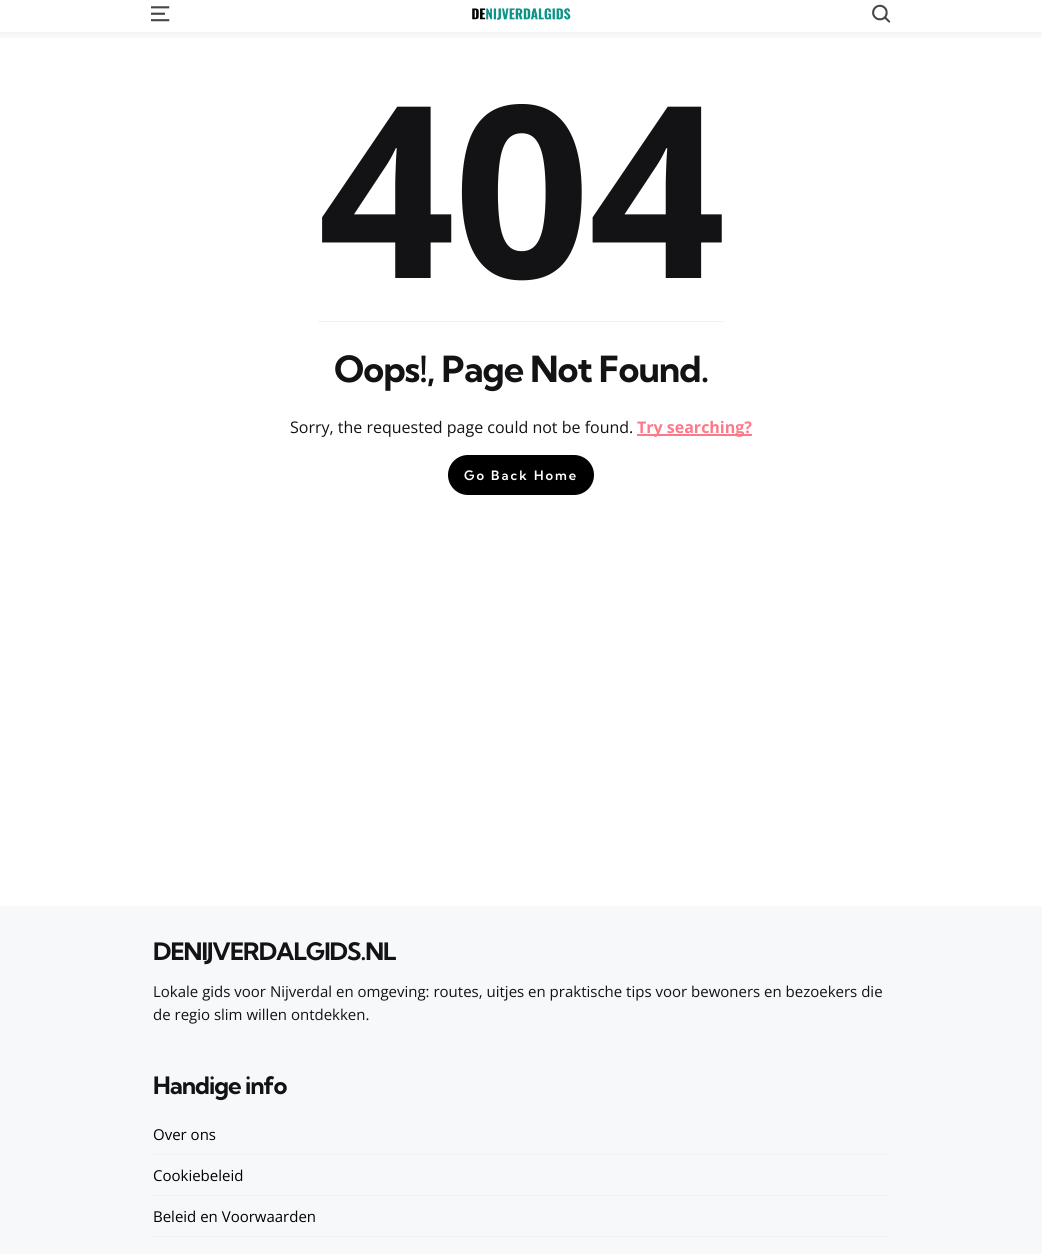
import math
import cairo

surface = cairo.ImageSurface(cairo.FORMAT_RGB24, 1042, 1254)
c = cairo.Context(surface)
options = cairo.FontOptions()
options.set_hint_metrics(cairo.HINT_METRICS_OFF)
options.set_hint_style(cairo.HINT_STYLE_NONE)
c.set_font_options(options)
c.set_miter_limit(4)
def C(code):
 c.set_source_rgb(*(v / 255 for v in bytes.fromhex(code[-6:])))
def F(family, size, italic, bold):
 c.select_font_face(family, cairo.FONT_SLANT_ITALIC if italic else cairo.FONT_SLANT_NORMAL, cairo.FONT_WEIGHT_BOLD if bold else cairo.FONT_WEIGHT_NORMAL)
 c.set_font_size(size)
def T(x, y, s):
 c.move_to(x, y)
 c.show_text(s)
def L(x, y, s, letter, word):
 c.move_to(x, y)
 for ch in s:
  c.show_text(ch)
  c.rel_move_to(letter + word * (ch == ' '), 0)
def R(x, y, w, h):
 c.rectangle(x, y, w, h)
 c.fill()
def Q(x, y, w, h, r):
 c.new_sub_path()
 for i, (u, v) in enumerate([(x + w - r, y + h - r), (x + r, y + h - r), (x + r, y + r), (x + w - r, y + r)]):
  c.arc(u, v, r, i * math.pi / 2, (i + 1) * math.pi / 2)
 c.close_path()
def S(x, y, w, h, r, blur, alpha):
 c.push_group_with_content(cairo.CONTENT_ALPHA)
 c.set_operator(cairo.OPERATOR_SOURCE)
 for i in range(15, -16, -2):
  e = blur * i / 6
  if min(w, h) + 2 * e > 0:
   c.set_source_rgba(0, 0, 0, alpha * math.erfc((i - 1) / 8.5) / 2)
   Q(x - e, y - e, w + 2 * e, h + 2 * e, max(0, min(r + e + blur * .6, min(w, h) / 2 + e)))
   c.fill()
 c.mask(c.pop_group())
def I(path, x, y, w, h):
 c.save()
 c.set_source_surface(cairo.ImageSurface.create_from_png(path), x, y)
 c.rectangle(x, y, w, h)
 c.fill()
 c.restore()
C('ffffff')
c.paint()
c.save()
c.rectangle(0,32,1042,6)
c.clip()
C('000000')
S(0,-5,1042,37,0,7.5,.1)
c.restore()
I('1.png',151,6,19,16)
I('2.png',472,8,99,12)
I('3.png',872,4,19,19)
C('f2f2f3')
R(318,321,406,1)
F('Open Sans',240,0,1)
C('131315')
L(318,278,'404',-2,0)
F('Kumbh Sans',36,0,1)
L(334,382,'Oops!, Page Not Found.',-1,0)
F('Open Sans',16,0,0)
T(290,433,'Sorry, the requested page could not be found.')
C('ff7887')
R(637,434,115,2)
F('Open Sans',16,0,1)
T(637,433,'Try searching?')
C('000000')
Q(448,455,146,40,20)
c.fill()
F('Kumbh Sans SemiBold',13,0,0)
C('ffffff')
L(464,480,'Go Back Home',2,0)
C('f7f8fa')
R(0,906,1042,348)
F('Kumbh Sans',24,0,1)
C('131315')
L(153,960,'DENIJVERDALGIDS.NL',-1,0)
F('Open Sans',15,0,0)
T(153,997,'Lokale gids voor Nijverdal en omgeving: routes, uitjes en praktische tips voor bewoners en bezoekers die')
T(153,1020,'de regio slim willen ontdekken.')
F('Kumbh Sans',24,0,1)
L(153,1094,'Handige info',-1,0)
C('f2f2f3')
R(153,1154,736,1)
F('Open Sans',15,0,0)
C('000000')
T(153,1140,'Over ons')
C('f2f2f3')
R(153,1195,736,1)
C('000000')
T(153,1181,'Cookiebeleid')
C('f2f2f3')
R(153,1236,736,1)
C('000000')
T(153,1222,'Beleid en Voorwaarden')
surface.write_to_png('o.png')
